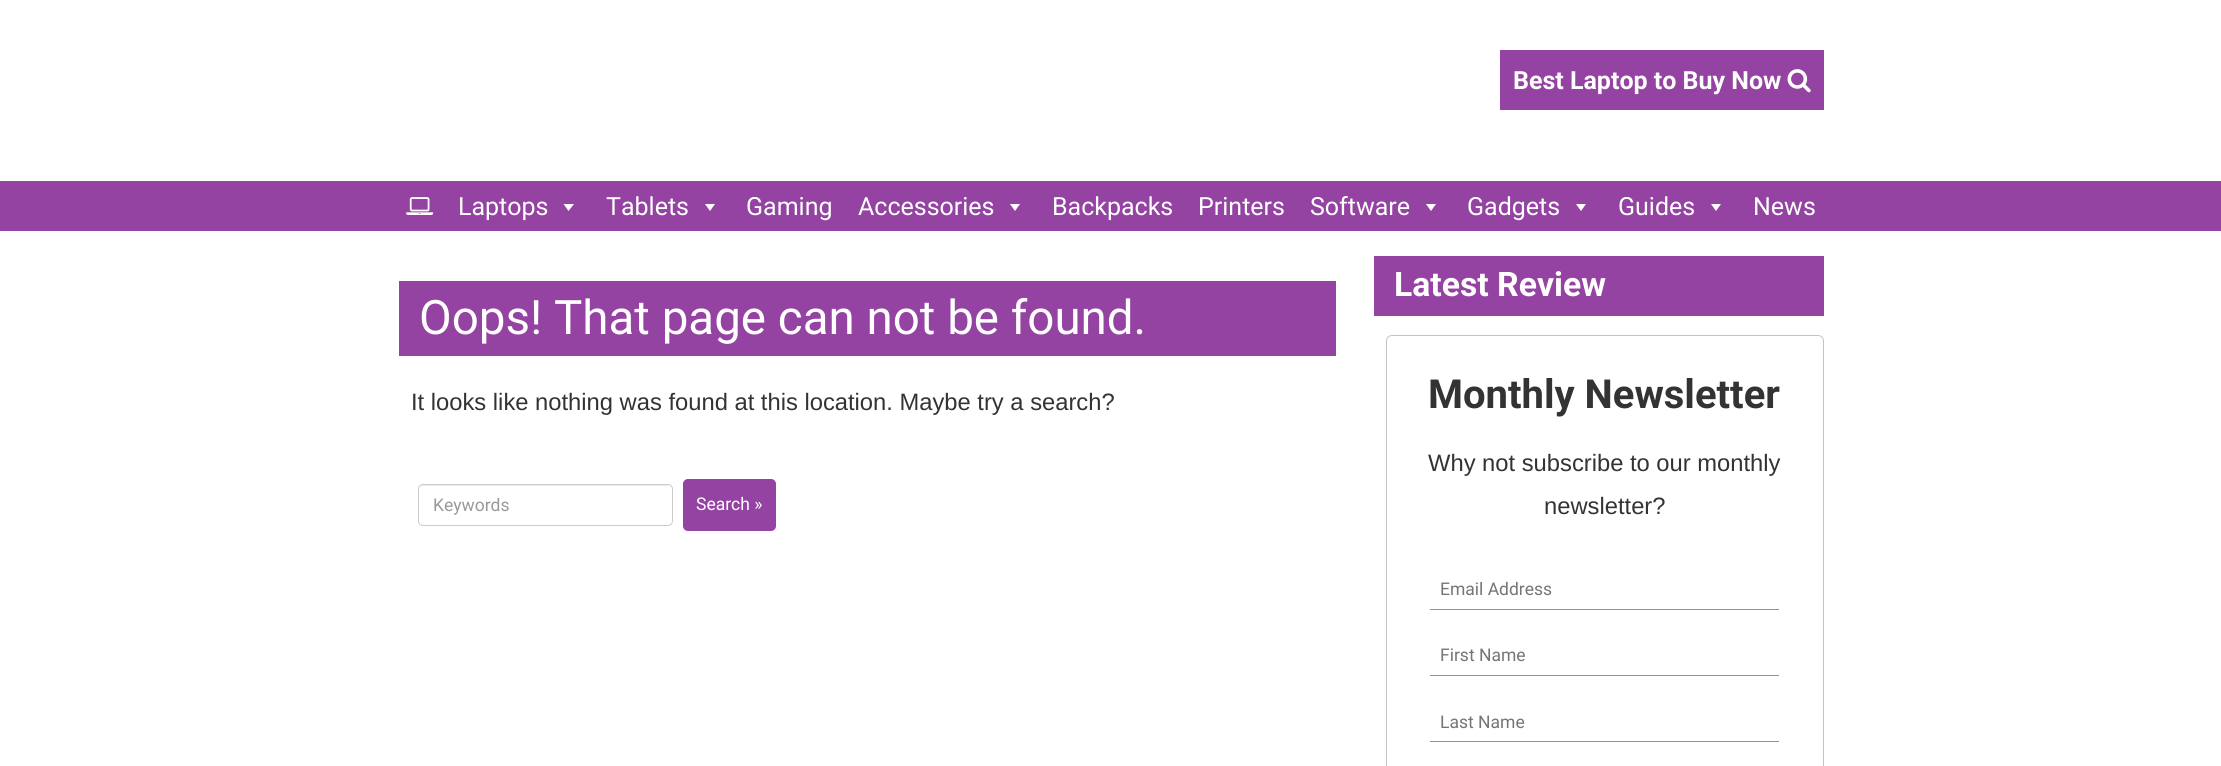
import math
import cairo

surface = cairo.ImageSurface(cairo.FORMAT_RGB24, 2221, 766)
c = cairo.Context(surface)
options = cairo.FontOptions()
options.set_hint_metrics(cairo.HINT_METRICS_OFF)
options.set_hint_style(cairo.HINT_STYLE_NONE)
c.set_font_options(options)
c.set_miter_limit(4)
def C(code):
 c.set_source_rgb(*(v / 255 for v in bytes.fromhex(code[-6:])))
def F(family, size, italic, bold):
 c.select_font_face(family, cairo.FONT_SLANT_ITALIC if italic else cairo.FONT_SLANT_NORMAL, cairo.FONT_WEIGHT_BOLD if bold else cairo.FONT_WEIGHT_NORMAL)
 c.set_font_size(size)
def T(x, y, s):
 c.move_to(x, y)
 c.show_text(s)
def R(x, y, w, h):
 c.rectangle(x, y, w, h)
 c.fill()
def Q(x, y, w, h, r):
 c.new_sub_path()
 for i, (u, v) in enumerate([(x + w - r, y + h - r), (x + r, y + h - r), (x + r, y + r), (x + w - r, y + r)]):
  c.arc(u, v, r, i * math.pi / 2, (i + 1) * math.pi / 2)
 c.close_path()
def I(path, x, y, w, h):
 c.save()
 c.set_source_surface(cairo.ImageSurface.create_from_png(path), x, y)
 c.rectangle(x, y, w, h)
 c.fill()
 c.restore()
C('ffffff')
c.paint()
C('9443a2')
R(1500,50,324,60)
F('Roboto',25,0,1)
C('ffffff')
T(1513,89,'Best Laptop to Buy Now')
I('1.png',1787,69,24,24)
C('9443a2')
R(0,181,2221,50)
I('2.png',406,197,28,18)
F('Roboto',25,0,0)
C('ffffff')
T(458,215,'Laptops')
c.new_path()
c.move_to(574,204)
c.line_to(568.5,211)
c.line_to(563.5,204)
c.close_path()
c.fill()
T(606,215,'Tablets')
c.new_path()
c.move_to(715,204)
c.line_to(710,211)
c.line_to(705,204)
c.close_path()
c.fill()
T(746,215,'Gaming')
T(858,215,'Accessories')
c.new_path()
c.move_to(1020,204)
c.line_to(1015,211)
c.line_to(1010,204)
c.close_path()
c.fill()
T(1052,215,'Backpacks')
T(1198,215,'Printers')
T(1310,215,'Software')
c.new_path()
c.move_to(1436,204)
c.line_to(1431,211)
c.line_to(1426,204)
c.close_path()
c.fill()
T(1467,215,'Gadgets')
c.new_path()
c.move_to(1586,204)
c.line_to(1581,211)
c.line_to(1576,204)
c.close_path()
c.fill()
T(1618,215,'Guides')
c.new_path()
c.move_to(1721,204)
c.line_to(1716,211)
c.line_to(1711,204)
c.close_path()
c.fill()
T(1753,215,'News')
C('9443a2')
R(399,281,937,75)
F('Roboto',47.5,0,0)
C('ffffff')
T(419,334,'Oops! That page can not be found.')
F('Liberation Sans',23.75,0,0)
C('333333')
T(411,410,'It looks like nothing was found at this location. Maybe try a search?')
C('ececec')
c.new_path()
c.move_to(422,486)
c.line_to(668,486)
c.curve_to(670,486,671,488,671,490)
c.line_to(671,489)
c.curve_to(671,487,669,485,667,485)
c.line_to(423,485)
c.curve_to(421,485,419,487,419,489)
c.line_to(419,490)
c.curve_to(419,488,420,486,422,486)
c.close_path()
c.fill()
Q(418.5,484.5,254,41,4.5)
C('cccccc')
c.set_line_width(1)
c.stroke()
F('Roboto',17.5,0,0)
C('999999')
T(433,511,'Keywords')
C('9443a2')
Q(683,479,93,52,5)
c.fill()
C('ffffff')
T(696,510,'Search »')
C('9443a2')
R(1374,256,450,60)
F('Roboto',33.75,0,1)
C('ffffff')
T(1394,296,'Latest Review')
Q(1386.5,335.5,437,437,5.5)
C('c3c3c3')
c.stroke()
F('Roboto',40,0,1)
C('333333')
T(1428,408,'Monthly Newsletter')
F('Liberation Sans',23.75,0,0)
T(1428,471,'Why not subscribe to our monthly')
T(1544,514,'newsletter?')
C('949494')
R(1430,609,349,1)
F('Roboto',17.5,0,0)
C('757575')
T(1440,595,'Email Address')
C('949494')
R(1430,675,349,1)
C('757575')
T(1440,661,'First Name')
C('949494')
R(1430,741,349,1)
C('757575')
T(1440,728,'Last Name')
surface.write_to_png('o.png')
